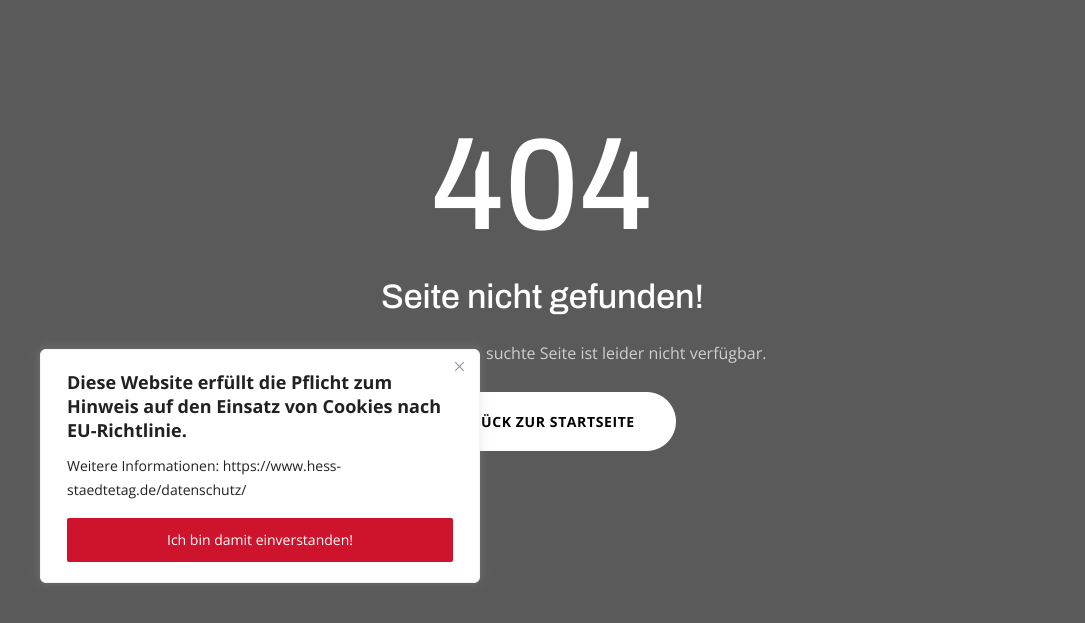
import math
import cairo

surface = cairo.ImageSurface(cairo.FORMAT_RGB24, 1085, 623)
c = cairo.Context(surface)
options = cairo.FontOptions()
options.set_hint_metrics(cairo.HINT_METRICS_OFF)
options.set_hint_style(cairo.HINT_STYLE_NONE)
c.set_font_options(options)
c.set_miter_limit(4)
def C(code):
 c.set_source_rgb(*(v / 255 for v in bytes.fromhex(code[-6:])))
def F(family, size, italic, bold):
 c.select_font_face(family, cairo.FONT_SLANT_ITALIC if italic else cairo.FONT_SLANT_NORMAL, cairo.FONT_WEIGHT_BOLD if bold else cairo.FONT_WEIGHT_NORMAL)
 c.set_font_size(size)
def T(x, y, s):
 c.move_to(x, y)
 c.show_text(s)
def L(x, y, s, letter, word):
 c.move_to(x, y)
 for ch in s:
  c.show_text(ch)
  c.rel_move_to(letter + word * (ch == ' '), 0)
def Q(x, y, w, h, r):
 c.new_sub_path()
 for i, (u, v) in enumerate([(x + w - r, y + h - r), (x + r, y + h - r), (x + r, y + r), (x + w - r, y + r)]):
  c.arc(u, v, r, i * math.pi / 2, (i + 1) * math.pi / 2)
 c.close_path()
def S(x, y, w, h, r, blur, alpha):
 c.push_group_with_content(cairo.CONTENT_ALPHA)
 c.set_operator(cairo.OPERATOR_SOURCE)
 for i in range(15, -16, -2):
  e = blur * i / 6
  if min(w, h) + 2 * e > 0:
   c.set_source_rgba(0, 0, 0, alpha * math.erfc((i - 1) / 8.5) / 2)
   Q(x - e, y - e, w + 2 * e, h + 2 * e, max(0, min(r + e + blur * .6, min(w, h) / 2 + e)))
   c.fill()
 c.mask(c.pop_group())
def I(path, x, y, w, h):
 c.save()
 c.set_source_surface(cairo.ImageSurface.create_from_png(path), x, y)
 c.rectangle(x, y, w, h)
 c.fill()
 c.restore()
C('5a5a5a')
c.paint()
F('Archivo Medium',130,0,0)
C('ffffff')
T(431,229,'404')
F('Archivo Medium',34,0,0)
T(381,308,'Seite nicht gefunden!')
F('Open Sans',16,0,0)
C('cecece')
T(486,359,'suchte Seite ist leider nicht verfügbar.')
C('ffffff')
Q(409,392,267,59,29.5)
c.fill()
F('Open Sans',14,0,1)
C('000000')
L(481,427,'ÜCK ZUR STARTSEITE',.6,0)
C('acabab')
S(40,348,440,234,6,5,.3)
C('ffffff')
Q(40.5,349.5,439,233,5.5)
c.fill_preserve()
C('f4f4f4')
c.set_line_width(1)
c.stroke()
I('1.png',455,362,9,9)
F('Open Sans',18,0,1)
C('212121')
T(67,389,'Diese Website erfüllt die Pflicht zum')
T(67,413,'Hinweis auf den Einsatz von Cookies nach')
T(67,437,'EU-Richtlinie.')
F('Open Sans',14,0,0)
T(67,471,'Weitere Informationen: https://www.hess-')
T(67,495,'staedtetag.de/datenschutz/')
C('ce132d')
Q(68,519,384,42,1)
c.fill_preserve()
c.set_line_width(2)
c.stroke()
C('ffffff')
T(167,545,'Ich bin damit einverstanden!')
surface.write_to_png('o.png')
